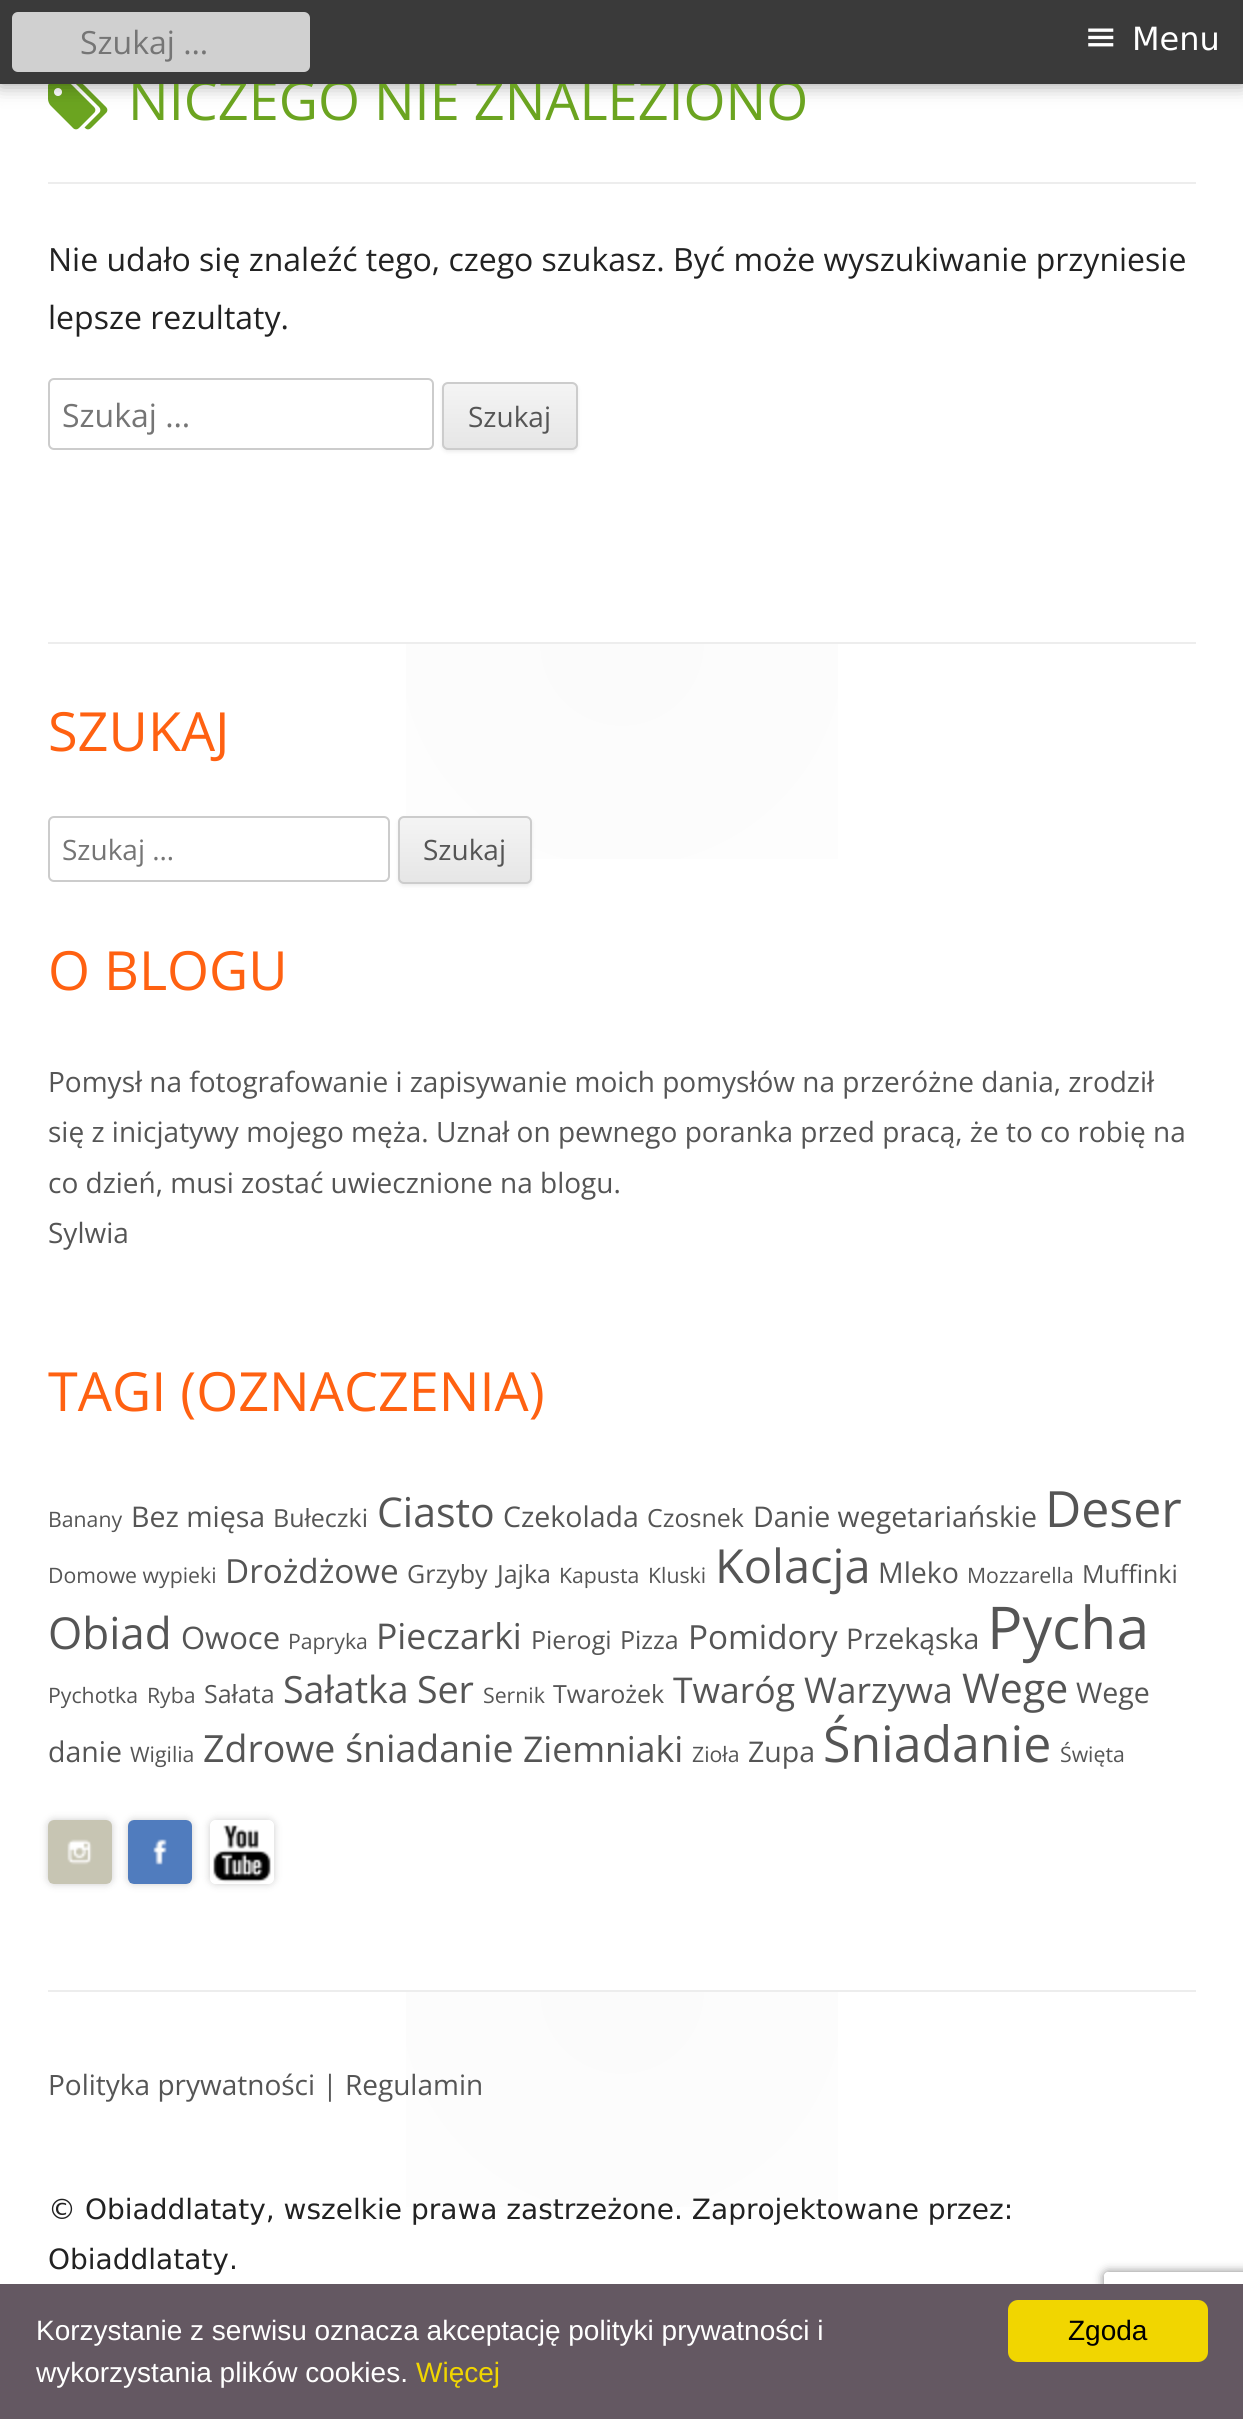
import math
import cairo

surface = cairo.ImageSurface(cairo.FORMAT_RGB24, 1243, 2419)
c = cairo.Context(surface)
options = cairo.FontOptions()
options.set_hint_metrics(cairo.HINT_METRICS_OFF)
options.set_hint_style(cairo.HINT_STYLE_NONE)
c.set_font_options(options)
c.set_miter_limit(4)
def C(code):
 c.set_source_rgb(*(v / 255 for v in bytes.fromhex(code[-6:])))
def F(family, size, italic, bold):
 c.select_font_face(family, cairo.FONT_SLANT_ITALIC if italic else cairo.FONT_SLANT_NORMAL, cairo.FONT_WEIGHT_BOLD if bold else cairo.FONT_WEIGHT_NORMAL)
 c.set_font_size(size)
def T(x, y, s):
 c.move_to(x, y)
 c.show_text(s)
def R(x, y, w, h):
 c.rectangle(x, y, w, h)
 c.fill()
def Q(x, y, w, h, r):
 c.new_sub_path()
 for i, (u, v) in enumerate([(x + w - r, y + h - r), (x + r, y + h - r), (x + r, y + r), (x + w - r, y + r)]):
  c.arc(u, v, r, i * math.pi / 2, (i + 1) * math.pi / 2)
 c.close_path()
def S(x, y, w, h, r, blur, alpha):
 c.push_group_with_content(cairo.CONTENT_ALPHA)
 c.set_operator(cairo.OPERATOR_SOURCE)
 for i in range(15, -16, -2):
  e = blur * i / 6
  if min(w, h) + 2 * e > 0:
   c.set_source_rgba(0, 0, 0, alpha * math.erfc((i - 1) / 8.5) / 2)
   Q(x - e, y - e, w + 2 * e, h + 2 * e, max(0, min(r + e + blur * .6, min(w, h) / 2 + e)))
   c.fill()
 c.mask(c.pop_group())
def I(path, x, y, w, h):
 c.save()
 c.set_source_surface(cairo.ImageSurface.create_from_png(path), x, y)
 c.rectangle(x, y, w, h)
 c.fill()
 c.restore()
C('ffffff')
c.paint()
I('1.png',48,84,60,46)
C('000000')
S(0,0,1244,84,0,10,.4)
F('Open Sans',54,0,0)
C('6ba420')
T(128,120,'NICZEGO NIE ZNALEZIONO')
C('3a3a3a')
R(0,0,1243,84)
C('d0d0d0')
Q(12,12,298,60,6)
c.fill()
F('Open Sans',32,0,0)
C('757575')
T(80,54,'Szukaj …')
F('DejaVu Sans',40,0,0)
C('ffffff')
T(1084,50,'≡')
F('DejaVu Sans',32,0,0)
T(1132,50,'Menu')
C('ededed')
R(48,182,1148,2)
F('Open Sans',32,0,0)
C('222222')
T(48,271,'Nie udało się znaleźć tego, czego szukasz. Być może wyszukiwanie przyniesie')
T(48,329,'lepsze rezultaty.')
Q(49,379,384,70,5)
C('cccccc')
c.stroke()
C('757575')
T(62,427,'Szukaj …')
C('404040')
S(442,384,136,68,6,2,.1)
c.save()
Q(442,382,136,68,6)
c.clip()
gradient = cairo.LinearGradient(510,384,510,448)
gradient.add_color_stop_rgba(0,0.957,0.957,0.957,1)
gradient.add_color_stop_rgba(1,0.902,0.902,0.902,1)
c.set_source(gradient)
R(442,384,136,64)
c.restore()
Q(443,383,134,66,5)
C('cccccc')
c.stroke()
F('Open Sans',28,0,0)
C('555555')
T(468,427,'Szukaj')
gradient = cairo.RadialGradient(622,644,0,622,644,574)
gradient.add_color_stop_rgba(0,0.984,0.984,0.984,1)
gradient.add_color_stop_rgba(1,1,1,1,1)
c.set_source(gradient)
R(406,644,432,215)
C('ededed')
R(48,642,1148,2)
F('Open Sans',54,0,0)
C('ff6111')
T(48,751,'SZUKAJ')
Q(49,817,340,64,5)
C('cccccc')
c.stroke()
F('Open Sans',28,0,0)
C('757575')
T(62,860,'Szukaj …')
C('404040')
S(398,818,134,68,6,2,.1)
c.save()
Q(398,816,134,68,6)
c.clip()
gradient = cairo.LinearGradient(465,818,465,882)
gradient.add_color_stop_rgba(0,0.957,0.957,0.957,1)
gradient.add_color_stop_rgba(1,0.902,0.902,0.902,1)
c.set_source(gradient)
R(398,818,134,64)
c.restore()
Q(399,817,132,66,5)
C('cccccc')
c.stroke()
C('555555')
T(423,860,'Szukaj')
F('Open Sans',54,0,0)
C('ff6111')
T(48,990,'O BLOGU')
F('Open Sans',28,0,0)
C('555555')
T(48,1092,'Pomysł na fotografowanie i zapisywanie moich pomysłów na przeróżne dania, zrodził')
T(48,1142,'się z inicjatywy mojego męża. Uznał on pewnego poranka przed pracą, że to co robię na')
T(48,1193,'co dzień, musi zostać uwiecznione na blogu.')
T(48,1243,'Sylwia')
F('Open Sans',54,0,0)
C('ff6111')
T(48,1411,'TAGI (OZNACZENIA)')
F('Open Sans',21.25,0,0)
C('555555')
T(48,1527,'Banany')
F('Open Sans',28.5,0,0)
T(131,1527,'Bez mięsa')
F('Open Sans',25,0,0)
T(273,1527,'Bułeczki')
F('Open Sans',41,0,0)
T(377,1527,'Ciasto')
F('Open Sans',28.5,0,0)
T(503,1527,'Czekolada')
F('Open Sans',25,0,0)
T(647,1527,'Czosnek')
F('Open Sans',28.5,0,0)
T(753,1527,'Danie wegetariańskie')
F('Open Sans',50,0,0)
T(1045,1527,'Deser')
F('Open Sans',21.25,0,0)
T(48,1583,'Domowe wypieki')
F('Open Sans',33.25,0,0)
T(225,1583,'Drożdżowe')
F('Open Sans',25,0,0)
T(407,1583,'Grzyby')
T(497,1583,'Jajka')
F('Open Sans',21.25,0,0)
T(559,1583,'Kapusta')
T(648,1583,'Kluski')
F('Open Sans',47,0,0)
T(715,1583,'Kolacja')
F('Open Sans',28.5,0,0)
T(878,1583,'Mleko')
F('Open Sans',21.25,0,0)
T(967,1583,'Mozzarella')
F('Open Sans',25,0,0)
T(1082,1583,'Muffinki')
F('Open Sans',44,0,0)
T(48,1649,'Obiad')
F('Open Sans',31,0,0)
T(181,1649,'Owoce')
F('Open Sans',21.25,0,0)
T(288,1649,'Papryka')
F('Open Sans',35.5,0,0)
T(376,1649,'Pieczarki')
F('Open Sans',25,0,0)
T(531,1649,'Pierogi')
T(620,1649,'Pizza')
F('Open Sans',33.25,0,0)
T(688,1649,'Pomidory')
F('Open Sans',28.5,0,0)
T(846,1649,'Przekąska')
F('Open Sans',59,0,0)
T(987,1649,'Pycha')
F('Open Sans',21.25,0,0)
T(48,1703,'Pychotka')
T(147,1703,'Ryba')
F('Open Sans',25,0,0)
T(204,1703,'Sałata')
F('Open Sans',37.5,0,0)
T(283,1703,'Sałatka')
T(417,1703,'Ser')
F('Open Sans',21.25,0,0)
T(483,1703,'Sernik')
F('Open Sans',25,0,0)
T(553,1703,'Twarożek')
F('Open Sans',35.5,0,0)
T(673,1703,'Twaróg')
T(804,1703,'Warzywa')
F('Open Sans',41,0,0)
T(962,1703,'Wege')
F('Open Sans',28.5,0,0)
T(1076,1703,'Wege')
T(48,1762,'danie')
F('Open Sans',21.25,0,0)
T(130,1762,'Wigilia')
F('Open Sans',37.5,0,0)
T(203,1762,'Zdrowe śniadanie')
F('Open Sans',35.5,0,0)
T(523,1762,'Ziemniaki')
F('Open Sans',21.25,0,0)
T(692,1762,'Zioła')
F('Open Sans',28.5,0,0)
T(748,1762,'Zupa')
F('Open Sans',50,0,0)
T(823,1762,'Śniadanie')
F('Open Sans',21.25,0,0)
T(1060,1762,'Święta')
C('000000')
S(48,1820,64,64,6,4,.2)
S(128,1820,64,64,6,4,.2)
c.save()
c.set_fill_rule(cairo.FILL_RULE_EVEN_ODD)
c.new_path()
c.move_to(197,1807)
c.line_to(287,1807)
c.line_to(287,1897)
c.line_to(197,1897)
c.close_path()
c.move_to(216,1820)
c.line_to(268,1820)
c.curve_to(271.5,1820,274,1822.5,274,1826)
c.line_to(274,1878)
c.curve_to(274,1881.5,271.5,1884,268,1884)
c.line_to(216,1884)
c.curve_to(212.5,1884,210,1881.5,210,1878)
c.line_to(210,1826)
c.curve_to(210,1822.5,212.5,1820,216,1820)
c.close_path()
c.clip()
S(210,1820,64,64,6,4,.2)
c.restore()
I('2.png',48,1820,64,64)
I('3.png',128,1820,64,64)
I('4.png',213,1825,58,58)
gradient = cairo.RadialGradient(622,1992,0,622,1992,574)
gradient.add_color_stop_rgba(0,0.984,0.984,0.984,1)
gradient.add_color_stop_rgba(1,1,1,1,1)
c.set_source(gradient)
R(406,1992,432,215)
C('ededed')
R(48,1990,1148,2)
F('Open Sans',28,0,0)
C('555555')
T(48,2095,'Polityka prywatności | Regulamin')
F('DejaVu Sans',28,0,0)
C('222222')
T(48,2219,'© Obiaddlataty, wszelkie prawa zastrzeżone. Zaprojektowane przez:')
T(48,2269,'Obiaddlataty.')
c.save()
c.set_fill_rule(cairo.FILL_RULE_EVEN_ODD)
c.new_path()
c.move_to(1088,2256)
c.line_to(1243,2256)
c.line_to(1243,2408)
c.line_to(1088,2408)
c.close_path()
c.move_to(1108,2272)
c.line_to(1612,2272)
c.curve_to(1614,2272,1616,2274,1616,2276)
c.line_to(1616,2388)
c.curve_to(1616,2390,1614,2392,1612,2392)
c.line_to(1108,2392)
c.curve_to(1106,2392,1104,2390,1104,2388)
c.line_to(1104,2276)
c.curve_to(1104,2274,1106,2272,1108,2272)
c.close_path()
c.clip()
C('808080')
S(1104,2272,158,120,4,5,1)
c.restore()
C('645862')
R(0,2284,1243,135)
F('Liberation Sans',28,0,0)
C('ffffff')
T(36,2340,'Korzystanie z serwisu oznacza akceptację polityki prywatności i')
T(36,2382,'wykorzystania plików cookies.')
C('f1d600')
T(416,2382,'Więcej')
Q(1008,2300,200,62,10)
c.fill()
C('000000')
T(1068,2340,'Zgoda')
surface.write_to_png('o.png')
